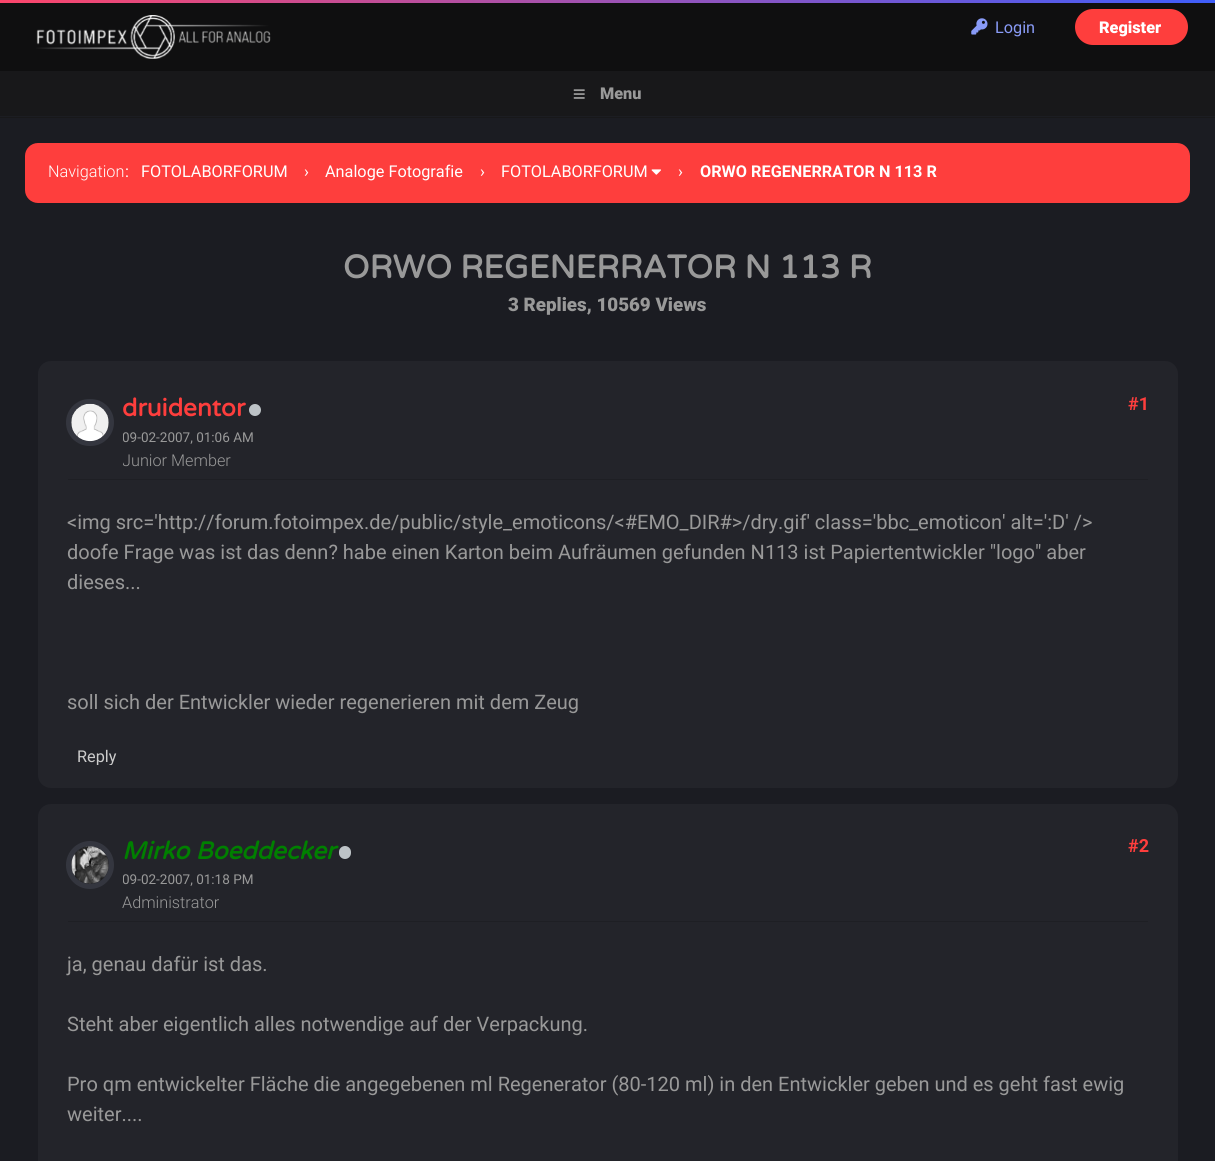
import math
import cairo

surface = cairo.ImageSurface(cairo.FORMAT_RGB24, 1215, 1161)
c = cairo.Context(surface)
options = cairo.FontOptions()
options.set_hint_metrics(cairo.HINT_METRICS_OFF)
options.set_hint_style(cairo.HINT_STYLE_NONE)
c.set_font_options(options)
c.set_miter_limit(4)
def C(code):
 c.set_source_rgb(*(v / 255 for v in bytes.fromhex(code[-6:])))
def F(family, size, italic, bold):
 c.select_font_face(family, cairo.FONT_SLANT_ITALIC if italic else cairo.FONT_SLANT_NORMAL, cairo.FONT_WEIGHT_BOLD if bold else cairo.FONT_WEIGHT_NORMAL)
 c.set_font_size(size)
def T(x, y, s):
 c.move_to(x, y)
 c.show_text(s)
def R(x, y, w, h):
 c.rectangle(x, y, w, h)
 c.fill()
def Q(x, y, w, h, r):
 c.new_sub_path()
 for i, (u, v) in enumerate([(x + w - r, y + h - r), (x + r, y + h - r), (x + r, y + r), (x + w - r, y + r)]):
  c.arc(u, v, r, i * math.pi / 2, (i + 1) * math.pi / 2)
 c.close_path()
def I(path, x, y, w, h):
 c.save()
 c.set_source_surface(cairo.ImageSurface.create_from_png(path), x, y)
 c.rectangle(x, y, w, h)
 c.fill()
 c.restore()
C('1b1c22')
c.paint()
gradient = cairo.LinearGradient(0,1.3,1215,1.2)
gradient.add_color_stop_rgba(0,0.988,0.275,0.42,1)
gradient.add_color_stop_rgba(1,0.247,0.369,0.984,1)
c.set_source(gradient)
R(0,0,1215,3)
C('0f0f10')
R(0,3,1215,68)
I('1.png',36,15,235,44)
I('2.png',971,18,17,17)
F('Roboto',16.25,0,0)
C('899bf7')
T(995,33,'Login')
C('fe3e3d')
Q(1075,9,113,36,18)
c.fill()
F('Roboto Black',16.25,0,0)
C('ffffff')
T(1099,33,'Register')
C('18181a')
R(0,71,1215,47)
C('1c1d22')
R(0,116,1215,1)
I('3.png',573,89,12,10)
C('999999')
T(600,99,'Menu')
C('fe3e3d')
Q(25,143,1165,60,13)
c.fill()
F('Roboto Light',16.25,0,0)
C('ffffff')
T(48,177,'Navigation')
F('Roboto',16.25,0,0)
T(125,177,':')
T(141,177,'FOTOLABORFORUM')
T(304,177,'›')
T(325,177,'Analoge Fotografie')
T(480,177,'›')
T(501,177,'FOTOLABORFORUM')
I('4.png',651,169,10,6)
T(678,177,'›')
F('Roboto',16.25,0,1)
T(700,177,'ORWO REGENERRATOR N 113 R')
F('Varela Round',32.5,0,1)
C('999999')
T(343,278,'ORWO REGENERRATOR N 113 R')
F('Roboto Black',18.75,0,0)
T(508,311,'3 Replies, 10569 Views')
C('23242a')
Q(38,361,1140,427,13)
c.fill()
F('Varela Round',24.4,0,1)
C('fe3e3d')
T(122,416,'druidentor')
C('bdc3c7')
c.new_path()
c.arc(255,410,6,0,2 * math.pi)
c.fill()
c.save()
c.rectangle(123,391,1025,82)
c.clip()
F('Roboto',13.5,0,0)
C('999999')
T(122,442,'09-02-2007, 01:06 AM')
F('Roboto Light',16.25,0,0)
T(122,466,'Junior Member')
c.restore()
F('Roboto',18,0,1)
C('fe3e3d')
T(1128,410,'#1')
C('1e1f24')
R(68,479,1080,1)
F('Roboto',20,0,0)
C('999999')
T(67,529,'<img src=\'http://forum.fotoimpex.de/public/style_emoticons/<#EMO_DIR#>/dry.gif\' class=\'bbc_emoticon\' alt=\':D\' />')
T(67,559,'doofe Frage was ist das denn? habe einen Karton beim Aufräumen gefunden N113 ist Papiertentwickler "logo" aber')
T(67,589,'dieses...')
T(67,709,'soll sich der Entwickler wieder regenerieren mit dem Zeug')
c.save()
c.rectangle(60,745,74,20)
c.clip()
F('Roboto',16.25,0,0)
C('cccccc')
T(77,762,'Reply')
c.restore()
Q(68.5,401.5,43,42,21)
C('34363f')
c.set_line_width(5)
c.stroke()
I('5.png',71,403,38,39)
C('23242a')
Q(38,804,1140,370,13)
c.fill()
F('Varela Round',24.4,1,1)
C('008000')
T(122,859,'Mirko Boeddecker')
C('bdc3c7')
Q(339,846,12,13,6)
c.fill()
c.save()
c.rectangle(123,834,1025,81)
c.clip()
F('Roboto',13.5,0,0)
C('999999')
T(122,884,'09-02-2007, 01:18 PM')
c.restore()
F('Roboto Light',16.25,0,0)
C('999999')
T(122,908,'Administrator')
F('Roboto',18,0,1)
C('fe3e3d')
T(1128,852,'#2')
C('1e1f24')
R(68,921,1080,1)
F('Roboto',20,0,0)
C('999999')
T(67,971,'ja, genau dafür ist das.')
T(67,1031,'Steht aber eigentlich alles notwendige auf der Verpackung.')
T(67,1091,'Pro qm entwickelter Fläche die angegebenen ml Regenerator (80-120 ml) in den Entwickler geben und es geht fast ewig')
T(67,1121,'weiter....')
c.new_path()
c.arc(90,865,21.5,0,2 * math.pi)
C('34363f')
c.stroke()
I('6.png',71,846,38,38)
surface.write_to_png('o.png')
